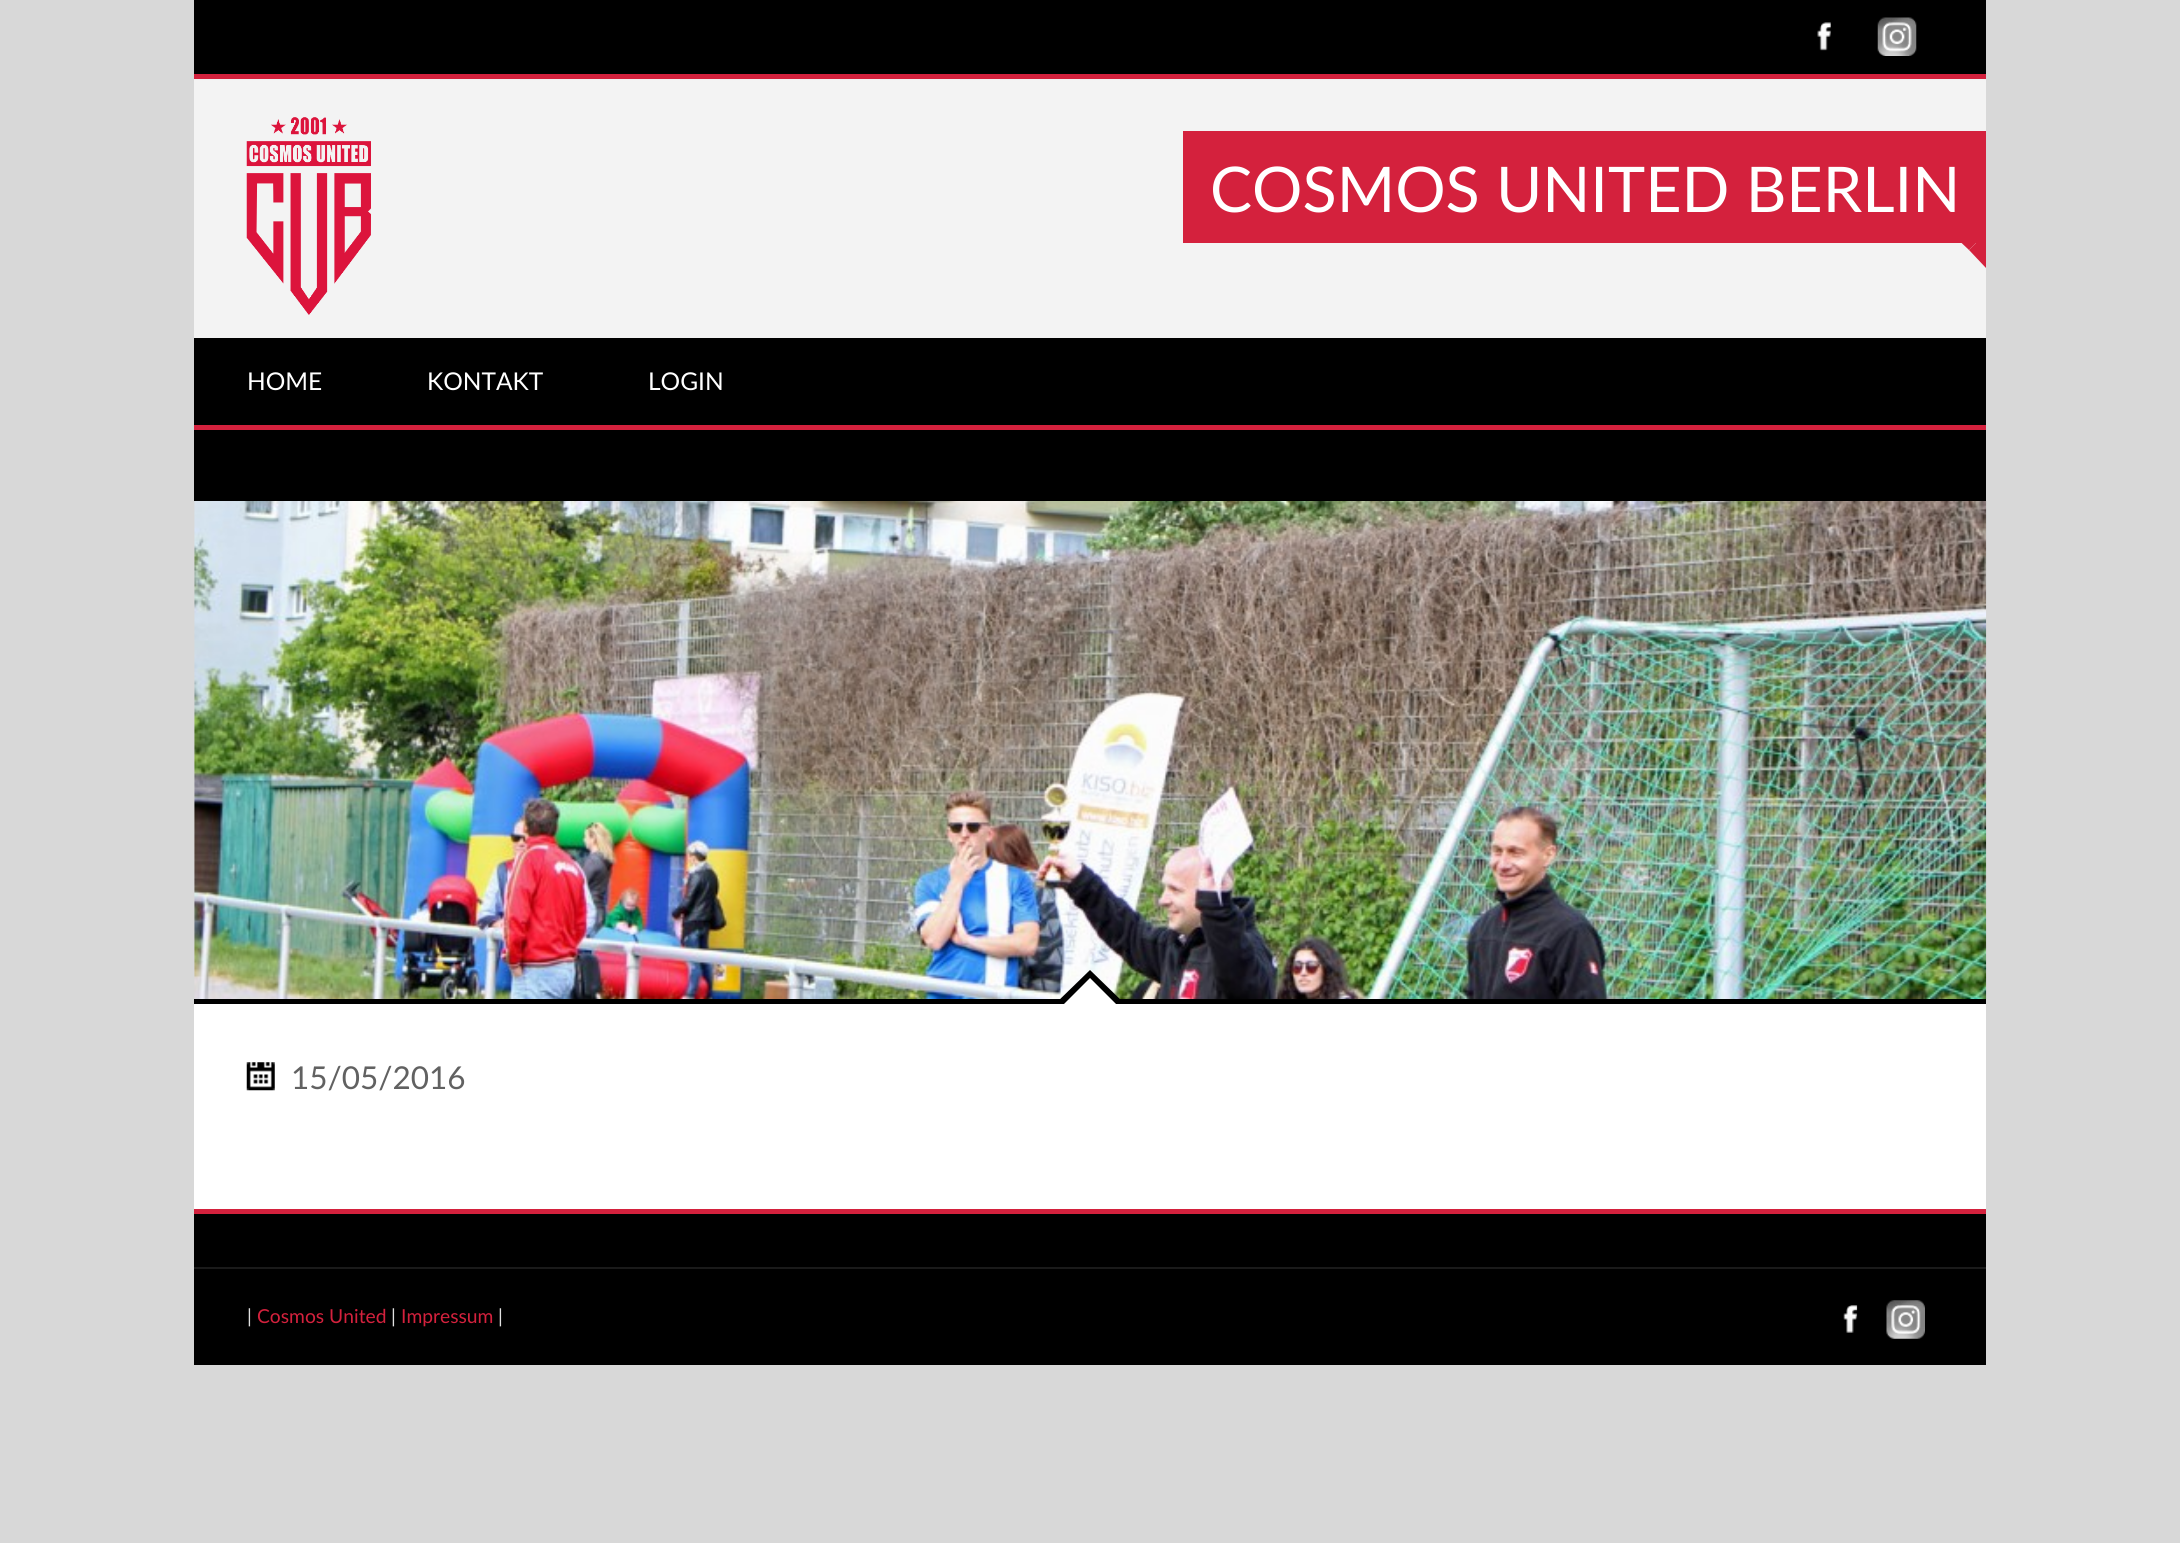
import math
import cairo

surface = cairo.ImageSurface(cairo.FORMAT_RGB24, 2180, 1543)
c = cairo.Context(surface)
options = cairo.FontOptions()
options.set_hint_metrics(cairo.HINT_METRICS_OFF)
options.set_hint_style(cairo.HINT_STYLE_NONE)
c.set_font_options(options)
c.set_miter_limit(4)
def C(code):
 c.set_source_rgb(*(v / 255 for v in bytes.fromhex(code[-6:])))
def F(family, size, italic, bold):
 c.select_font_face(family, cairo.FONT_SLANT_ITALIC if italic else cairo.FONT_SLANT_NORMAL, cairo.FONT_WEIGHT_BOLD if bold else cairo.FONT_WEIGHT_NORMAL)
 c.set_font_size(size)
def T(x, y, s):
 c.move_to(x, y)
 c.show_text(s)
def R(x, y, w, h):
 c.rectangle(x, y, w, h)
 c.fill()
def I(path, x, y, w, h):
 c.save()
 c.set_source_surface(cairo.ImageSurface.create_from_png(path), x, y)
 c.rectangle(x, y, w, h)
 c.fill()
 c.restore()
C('d8d8d8')
c.paint()
C('000000')
R(194,0,1792,74)
C('d4213d')
R(194,74,1792,5)
I('1.png',1817,22,14,29)
I('2.png',1877,17,40,39)
C('f3f3f3')
R(194,79,1792,259)
I('3.png',246,117,125,198)
C('d4213d')
R(1183,131,803,112)
F('Lato',63,0,0)
C('ffffff')
T(1210,212,'COSMOS UNITED BERLIN')
C('d4213d')
c.new_path()
c.move_to(1951,233)
c.line_to(1986,233)
c.line_to(1969,250)
c.close_path()
c.fill()
c.new_path()
c.move_to(1986,233)
c.line_to(1986,268)
c.line_to(1969,250)
c.close_path()
c.fill()
C('000000')
R(194,338,1792,93)
C('d4213d')
R(194,425,1792,5)
F('Lato',24.5,0,0)
C('ffffff')
T(247,390,'HOME')
T(427,390,'KONTAKT')
T(648,390,'LOGIN')
I('4.png',194,500,1793,499)
C('000000')
R(194,431,1792,70)
C('ffffff')
R(194,1004,1792,205)
C('000000')
R(194,999,1792,5)
c.new_path()
c.move_to(1125,1004)
c.line_to(1055,1004)
c.line_to(1090,970)
c.close_path()
c.fill()
C('ffffff')
c.new_path()
c.move_to(1116,1004)
c.line_to(1064,1004)
c.line_to(1090,978)
c.close_path()
c.fill()
I('5.png',246,1062,29,29)
F('Lato',31.5,0,0)
C('616161')
T(291,1089,'15/05/2016')
C('000000')
R(194,1214,1792,151)
C('d4213d')
R(194,1209,1792,5)
C('1a1a1a')
R(194,1267,1792,2)
F('Lato',19.25,0,0)
C('e1e1e1')
T(247,1323,'|')
C('d4213d')
T(257,1323,'Cosmos United')
C('e1e1e1')
T(391,1323,'|')
C('d4213d')
T(401,1323,'Impressum')
C('e1e1e1')
T(498,1323,'|')
I('6.png',1843,1305,15,28)
I('7.png',1886,1300,39,39)
surface.write_to_png('o.png')
